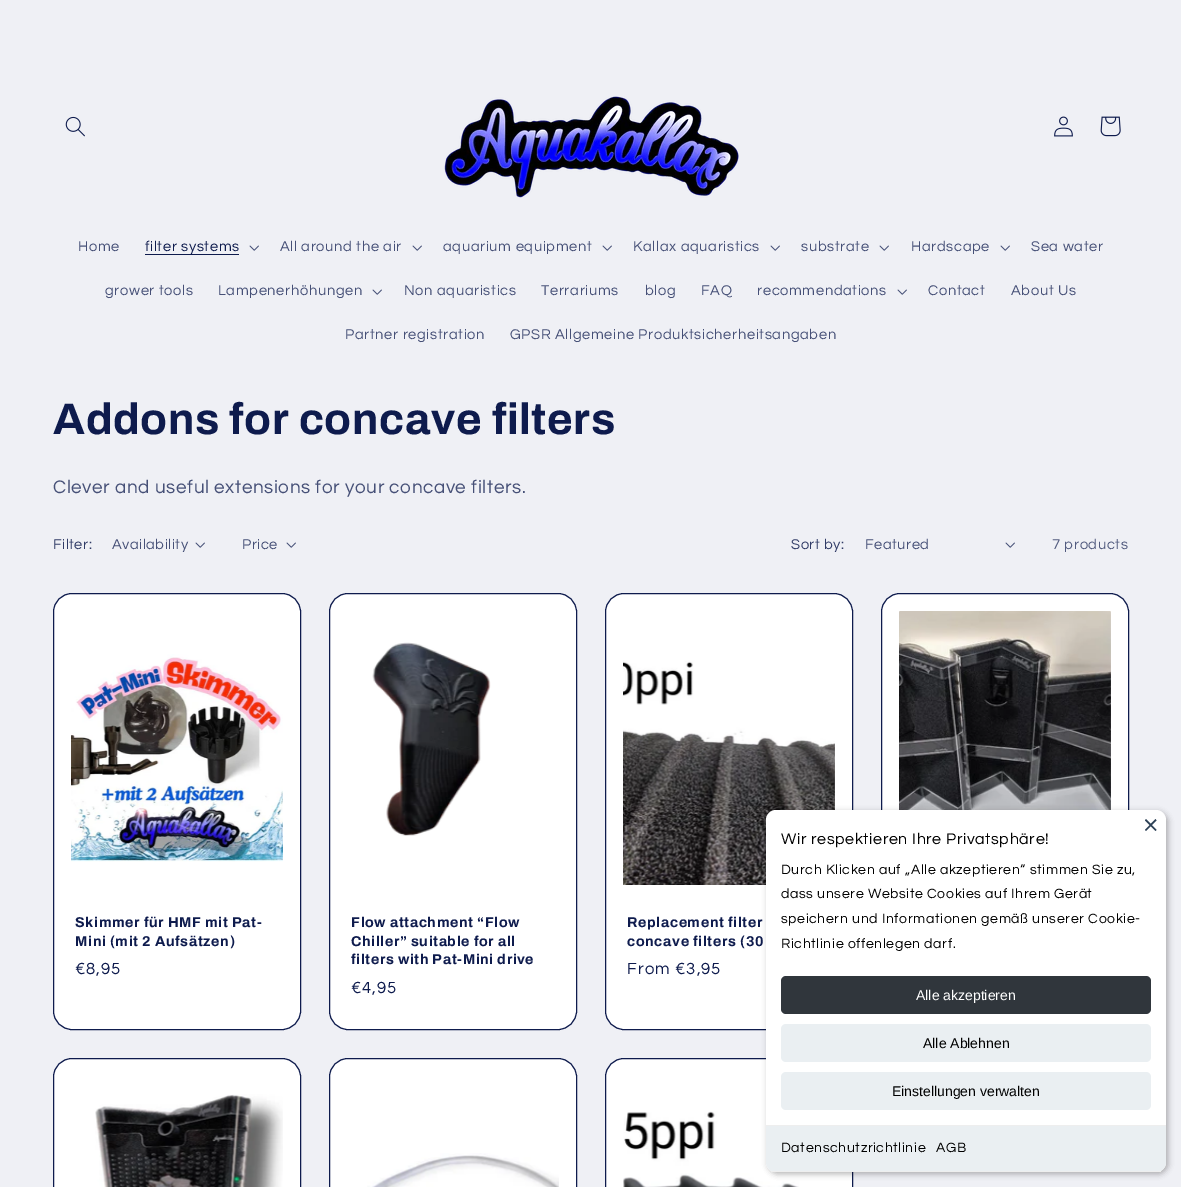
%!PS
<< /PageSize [1181 1187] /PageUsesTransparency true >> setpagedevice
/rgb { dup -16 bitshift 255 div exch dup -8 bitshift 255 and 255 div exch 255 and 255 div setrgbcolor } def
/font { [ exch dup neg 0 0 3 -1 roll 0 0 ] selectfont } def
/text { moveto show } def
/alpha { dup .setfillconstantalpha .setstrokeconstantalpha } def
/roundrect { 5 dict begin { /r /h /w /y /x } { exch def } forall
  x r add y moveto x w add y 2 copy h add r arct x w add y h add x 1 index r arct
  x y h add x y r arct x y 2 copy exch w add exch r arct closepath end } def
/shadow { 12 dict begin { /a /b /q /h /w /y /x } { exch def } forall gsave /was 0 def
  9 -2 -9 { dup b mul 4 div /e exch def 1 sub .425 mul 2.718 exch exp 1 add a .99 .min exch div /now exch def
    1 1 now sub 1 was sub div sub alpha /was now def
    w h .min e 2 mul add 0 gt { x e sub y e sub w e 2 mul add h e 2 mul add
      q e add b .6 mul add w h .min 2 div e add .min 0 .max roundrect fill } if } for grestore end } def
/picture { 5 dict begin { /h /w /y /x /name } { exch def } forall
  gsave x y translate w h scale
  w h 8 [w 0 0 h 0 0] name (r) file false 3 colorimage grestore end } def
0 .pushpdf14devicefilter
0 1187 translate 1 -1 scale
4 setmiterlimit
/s1 { /LiberationSans-Regular 14 font 16#FFFFFF rgb } def
/s2 { /LiberationSans-Regular 14 font 16#000000 rgb } def
16#EFF0F5 rgb
0 0 1181 1187 rectfill
(pic1.raw) 65 116 20 21 picture
(pic2.raw) 444 96 295 102 picture
(pic3.raw) 1054 116 19 21 picture
(pic4.raw) 1100 116 21 21 picture
/Questrial-Regular 14.7 font
16#465077 rgb
78 251 moveto 0.63 0 (Home) ashow
16#0E1B4D rgb
145 251 moveto 0.63 0 (filter systems) ashow
145 254 94 1 rectfill
(pic5.raw) 249 245 10 6 picture
16#465077 rgb
280 251 moveto 0.63 0 (All around the air) ashow
(pic5.raw) 412 245 10 6 picture
443 251 moveto 0.63 0 (aquarium equipment) ashow
(pic5.raw) 602 245 10 6 picture
633 251 moveto 0.63 0 (Kallax aquaristics) ashow
(pic5.raw) 770 245 10 6 picture
801 251 moveto 0.63 0 (substrate) ashow
(pic5.raw) 879 245 10 6 picture
911 251 moveto 0.63 0 (Hardscape) ashow
(pic5.raw) 1000 245 10 6 picture
1031 251 moveto 0.63 0 (Sea water) ashow
105 295 moveto 0.63 0 (grower tools) ashow
218 295 moveto 0.63 0 (Lampenerhöhungen) ashow
(pic5.raw) 372 289 10 6 picture
404 295 moveto 0.63 0 (Non aquaristics) ashow
541 295 moveto 0.63 0 (Terrariums) ashow
645 295 moveto 0.63 0 (blog) ashow
701 295 moveto 0.63 0 (FAQ) ashow
757 295 moveto 0.63 0 (recommendations) ashow
(pic5.raw) 897 289 10 6 picture
928 295 moveto 0.63 0 (Contact) ashow
1011 295 moveto 0.63 0 (About Us) ashow
345 339 moveto 0.63 0 (Partner registration) ashow
510 339 moveto 0.63 0 (GPSR Allgemeine Produktsicherheitsangaben) ashow
/Archivo-Bold 44 font
16#0E1B4D rgb
53 434 moveto 0.65 0 (Addons for concave filters) ashow
/Questrial-Regular 18.9 font
16#465077 rgb
53 493 moveto 0.63 0 (Clever and useful extensions for your concave filters.) ashow
/Questrial-Regular 14.7 font
16#303B66 rgb
53 549 moveto 0.5 0 (Filter:) ashow
16#465077 rgb
112 549 moveto 0.5 0 (Availability) ashow
(pic5.raw) 195 542 10 6 picture
242 549 moveto 0.5 0 (Price) ashow
(pic5.raw) 286 542 10 6 picture
16#303B66 rgb
791 549 moveto 0.5 0 (Sort by:) ashow
16#465077 rgb
865 549 moveto 0.5 0 (Featured) ashow
(pic5.raw) 1005 542 10 6 picture
16#525B7F rgb
1052 549 moveto 0.63 0 (7 products) ashow
16#FFFFFF rgb
53.5 593.5 247 436 18.5 roundrect gsave fill grestore
16#0E1B4D rgb
stroke
(pic6.raw) 71 654 212 208 picture
/Archivo-Bold 14.25 font
75 927 moveto 0.65 0 (Skimmer für HMF mit Pat-) ashow
75 946 moveto 0.65 0 (Mini \(mit 2 Aufsätzen\)) ashow
/Questrial-Regular 16.75 font
75 974 moveto 1 0 (€8,95) ashow
16#FFFFFF rgb
329.5 593.5 247 436 18.5 roundrect gsave fill grestore
16#0E1B4D rgb
stroke
(pic7.raw) 372 642 119 194 picture
/Archivo-Bold 14.25 font
351 927 moveto 0.65 0 (Flow attachment “Flow) ashow
351 946 moveto 0.65 0 (Chiller” suitable for all) ashow
351 964 moveto 0.65 0 (filters with Pat-Mini drive) ashow
/Questrial-Regular 16.75 font
351 993 moveto 1 0 (€4,95) ashow
16#FFFFFF rgb
605.5 593.5 247 436 18.5 roundrect gsave fill grestore
16#0E1B4D rgb
stroke
(pic8.raw) 623 660 212 225 picture
/Archivo-Bold 14.25 font
627 927 moveto 0.65 0 (Replacement filter) ashow
627 946 moveto 0.65 0 (concave filters \(30) ashow
/Questrial-Regular 16.75 font
627 974 moveto 1 0 (From €3,95) ashow
16#FFFFFF rgb
881.5 593.5 247 436 18.5 roundrect gsave fill grestore
16#0E1B4D rgb
stroke
(pic9.raw) 899 611 212 199 picture
16#FFFFFF rgb
53.5 1058.5 247 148 18.5 roundrect gsave fill grestore
16#0E1B4D rgb
stroke
(pic10.raw) 95 1094 188 93 picture
16#FFFFFF rgb
329.5 1058.5 247 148 18.5 roundrect gsave fill grestore
16#0E1B4D rgb
stroke
(pic11.raw) 367 1153 192 34 picture
16#FFFFFF rgb
605.5 1058.5 247 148 18.5 roundrect gsave fill grestore
16#0E1B4D rgb
stroke
(pic12.raw) 623 1111 176 76 picture
16#000000 rgb
768 812 400 362 10 3 0.15 shadow
768 812 400 362 10 3 0.15 shadow
16#FFFFFF rgb
766 810 400 362 10 roundrect fill
16#2D4156 rgb
1155.5 819 moveto 1156.5 820.5 lineto 1146 831 lineto 1145 830 lineto closepath fill
1145 820.5 moveto 1146 819 lineto 1156.5 830 lineto 1155.5 831 lineto closepath fill
/Questrial-Regular 16 font
16#000000 rgb
781 844 moveto 0.63 0 (Wir respektieren Ihre Privatsphäre!) ashow
/Questrial-Regular 14 font
781 874 moveto 0.63 0 (Durch Klicken auf „Alle akzeptieren“ stimmen Sie zu,) ashow
781 898 moveto 0.63 0 (dass unsere Website Cookies auf Ihrem Gerät) ashow
781 923 moveto 0.63 0 (speichern und Informationen gemäß unserer Cookie-) ashow
781 948 moveto 0.63 0 (Richtlinie offenlegen darf.) ashow
16#30363C rgb
781 976 370 38 5 roundrect fill
s1
(Alle akzeptieren) 916 1000 text
16#EAEFF2 rgb
781 1024 370 38 5 roundrect fill
s2
(Alle Ablehnen) 923 1048 text
16#EAEFF2 rgb
781 1072 370 38 5 roundrect fill
s2
(Einstellungen verwalten) 892 1096 text
16#EAEFF2 rgb
766 1125 moveto 1166 1125 lineto 1166 1162 lineto 1166 1167.5 1161.5 1172 1156 1172 curveto 776 1172 lineto 770.5 1172 766 1167.5 766 1162 curveto closepath fill
16#EEEEEE rgb
766 1125 400 1 rectfill
gsave
766 810 400 362 10 roundrect clip newpath
766 1171 400 1 rectfill
grestore
/Questrial-Regular 14 font
16#000000 rgb
781 1152 moveto 0.63 0 (Datenschutzrichtlinie) ashow
936 1152 moveto 0.63 0 (AGB) ashow
.poppdf14devicefilter showpage
